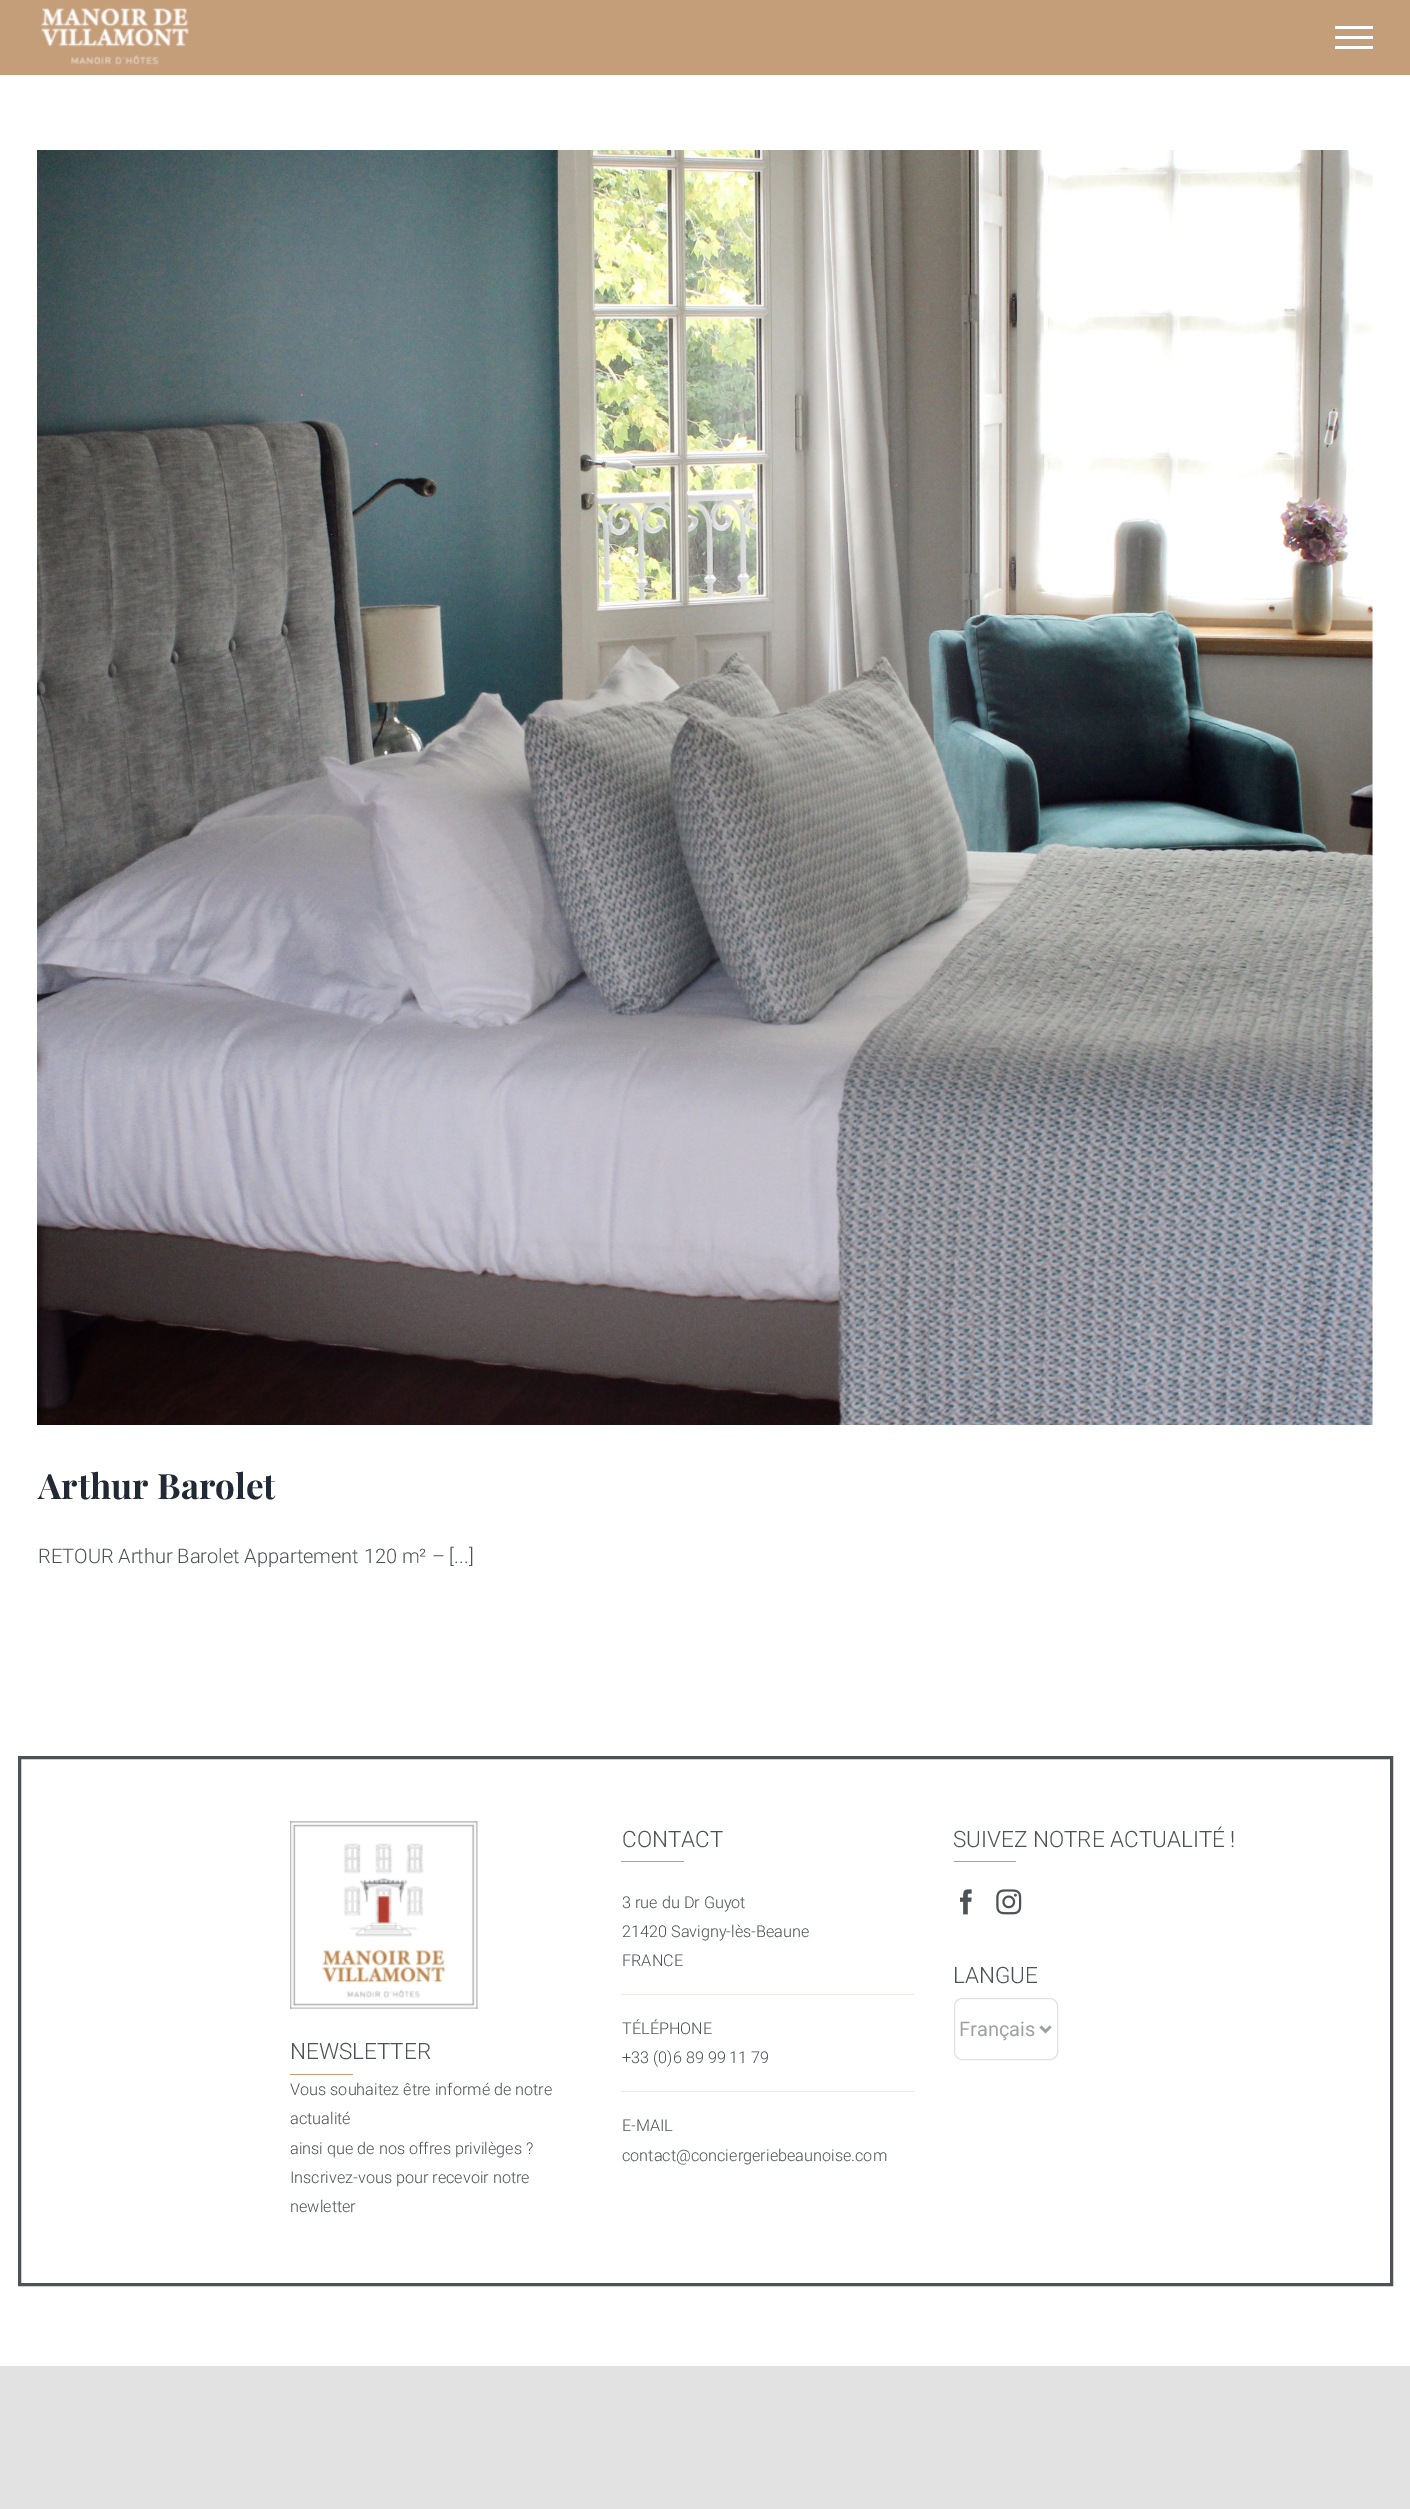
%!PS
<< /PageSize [1410 2509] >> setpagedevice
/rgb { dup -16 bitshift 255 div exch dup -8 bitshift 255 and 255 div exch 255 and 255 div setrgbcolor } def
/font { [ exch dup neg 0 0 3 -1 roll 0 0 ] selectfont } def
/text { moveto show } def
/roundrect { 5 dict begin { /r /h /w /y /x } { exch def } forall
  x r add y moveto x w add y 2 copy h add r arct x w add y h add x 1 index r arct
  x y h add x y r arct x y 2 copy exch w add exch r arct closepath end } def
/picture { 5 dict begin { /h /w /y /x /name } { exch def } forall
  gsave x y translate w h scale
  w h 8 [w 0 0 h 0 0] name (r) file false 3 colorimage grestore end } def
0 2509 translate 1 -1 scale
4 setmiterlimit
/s1 { /PlayfairDisplay-Bold 35 font 16#212934 rgb } def
/s2 { /Roboto-Light 20 font 16#4D5256 rgb } def
/s3 { /Roboto-Light 22.5 font 16#4D5256 rgb } def
/s4 { /Roboto-Light 16.25 font 16#4D5256 rgb } def
/s5 { /Roboto-Regular 20 font 16#9EA0A4 rgb } def
16#E2E2E2 rgb
0 0 1410 2509 rectfill
16#FFFFFF rgb
0 75 1410 2291 rectfill
16#C49D79 rgb
0 0 1410 75 rectfill
(pic1.raw) 41 7 148 58 picture
16#FFFFFF rgb
1335 26 38 3 rectfill
1335 36 38 3 rectfill
1335 46 38 3 rectfill
(pic2.raw) 37 150 1336 1275 picture
s1
(Arthur Barolet) 38 1499 text
s2
(RETOUR Arthur Barolet Appartement 120 m² – [...]) 38 1563 text
3 setlinewidth
19.5 1757.5 1372 527 rectstroke
(pic3.raw) 290 1821 188 188 picture
s3
(NEWSLETTER) 290 2059 text
16#C49D79 rgb
290 2074 63 1 rectfill
s4
(Vous souhaitez être informé de notre) 290 2095 text
(actualité) 290 2124 text
(ainsi que de nos offres privilèges ?) 290 2154 text
(Inscrivez-vous pour recevoir notre) 290 2183 text
(newletter) 290 2212 text
s3
(CONTACT) 622 1847 text
16#C49D79 rgb
621 1861 63 1 rectfill
s4
(3 rue du Dr Guyot) 622 1908 text
(21420 Savigny-lès-Beaune) 622 1937 text
(FRANCE) 622 1966 text
16#EEE9E1 rgb
621 1994 293 1 rectfill
s4
(TÉLÉPHONE) 622 2034 text
(+33 \(0\)6 89 99 11 79) 622 2063 text
16#EEE9E1 rgb
621 2091 293 1 rectfill
s4
(E-MAIL) 622 2131 text
(contact@conciergeriebeaunoise.com) 622 2161 text
s3
(SUIVEZ NOTRE ACTUALITÉ !) 953 1847 text
16#C49D79 rgb
954 1861 62 1 rectfill
(pic4.raw) 960 1889 12 26 picture
(pic5.raw) 996 1889 26 26 picture
s3
(LANGUE) 953 1983 text
16#E2E2E2 rgb
1 setlinewidth
954.5 1998.5 103 61 7.5 roundrect stroke
16#9EA0A4 rgb
2.5 setlinewidth
1040.5 2026.5 moveto 1045.5 2031.5 lineto 1050.5 2026.5 lineto stroke
s5
(Français) 959 2036 text
showpage
